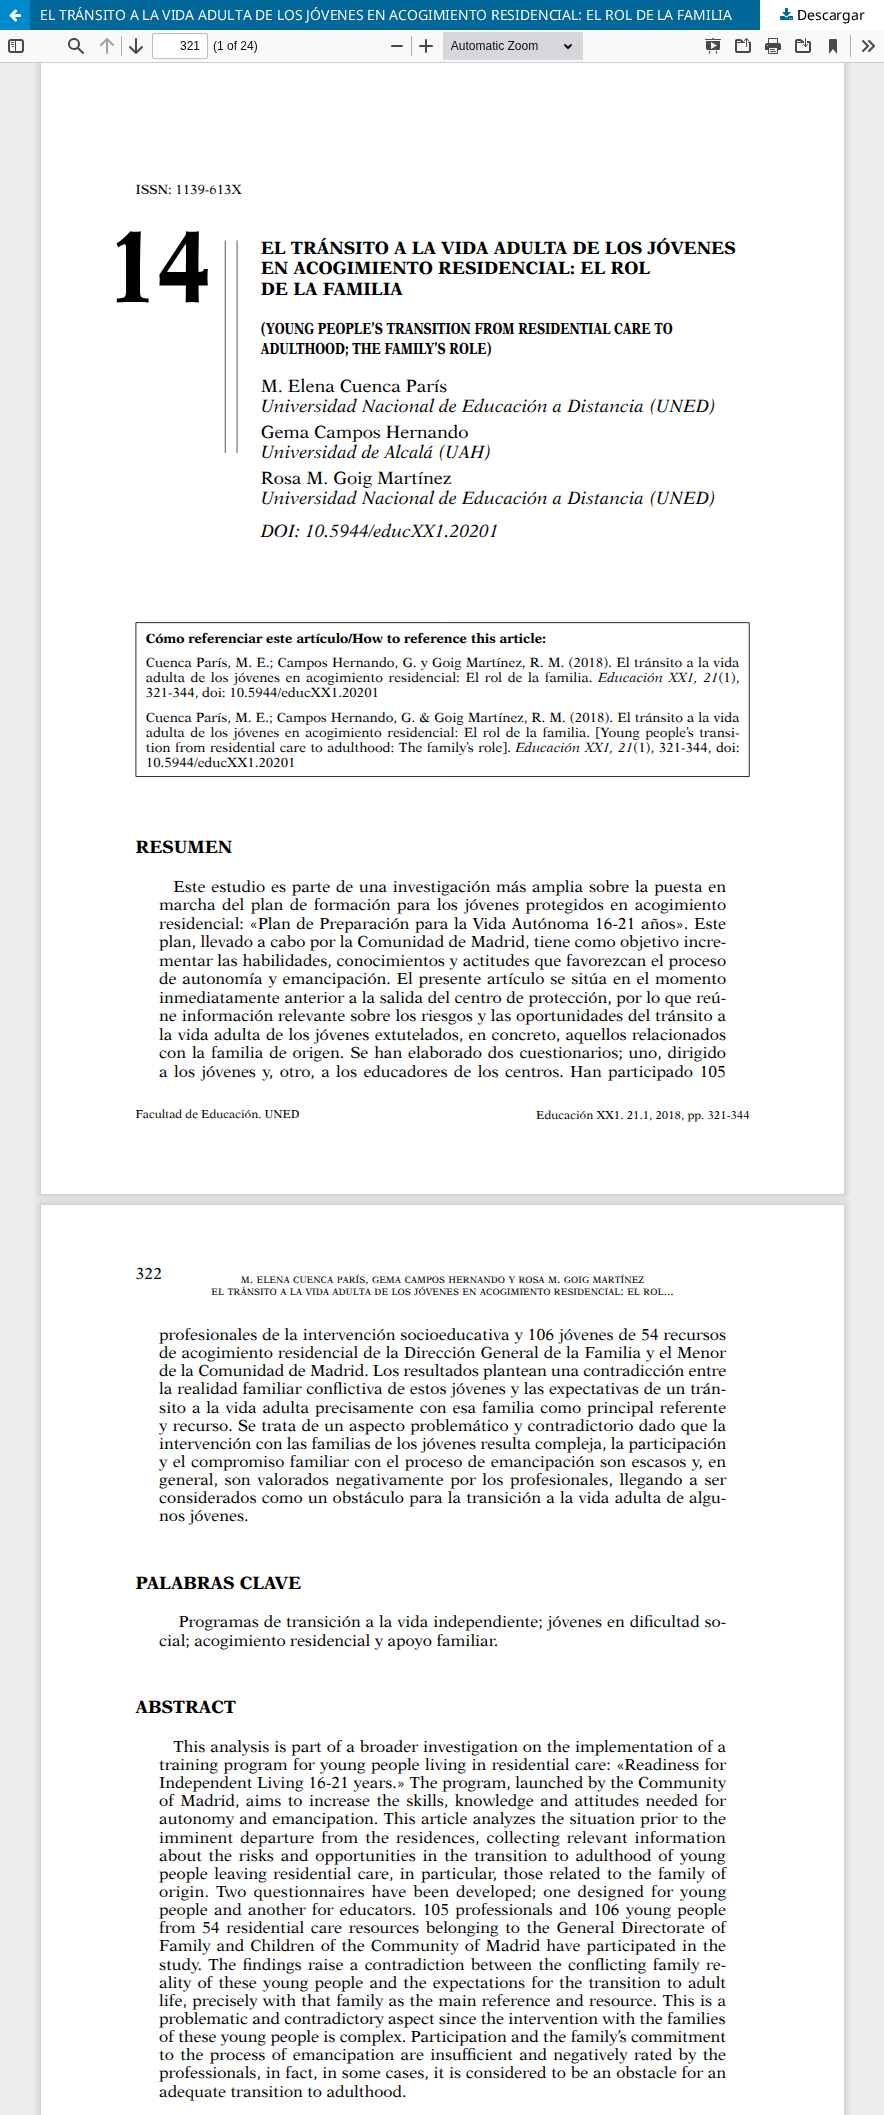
%!PS
<< /PageSize [884 2115] >> setpagedevice
/rgb { dup -16 bitshift 255 div exch dup -8 bitshift 255 and 255 div exch 255 and 255 div setrgbcolor } def
/font { [ exch dup neg 0 0 3 -1 roll 0 0 ] selectfont } def
/text { moveto show } def
/picture { 5 dict begin { /h /w /y /x /name } { exch def } forall
  gsave x y translate w h scale
  w h 8 [w 0 0 h 0 0] name (r) file false 3 colorimage grestore end } def
0 2115 translate 1 -1 scale
4 setmiterlimit
/s1 { /NotoSans-Regular 14 font 16#FFFFFF rgb } def
/s2 { /NotoSans-Regular 14 font 16#000000 rgb } def
16#FFFFFF rgb
0 0 884 2115 rectfill
16#006798 rgb
30 0 730 30 rectfill
16#008ACB rgb
0 0 30 30 rectfill
(pic1.raw) 9 9 12 13 picture
s1
(EL TRÁNSITO A LA VIDA ADULTA DE LOS JÓVENES EN ACOGIMIENTO RESIDENCIAL: EL ROL DE LA FAMILIA) 40 20 text
(pic2.raw) 780 8 13 12 picture
s2
(Descargar) 797 20 text
(pic3.raw) 0 30 884 2085 picture
showpage
